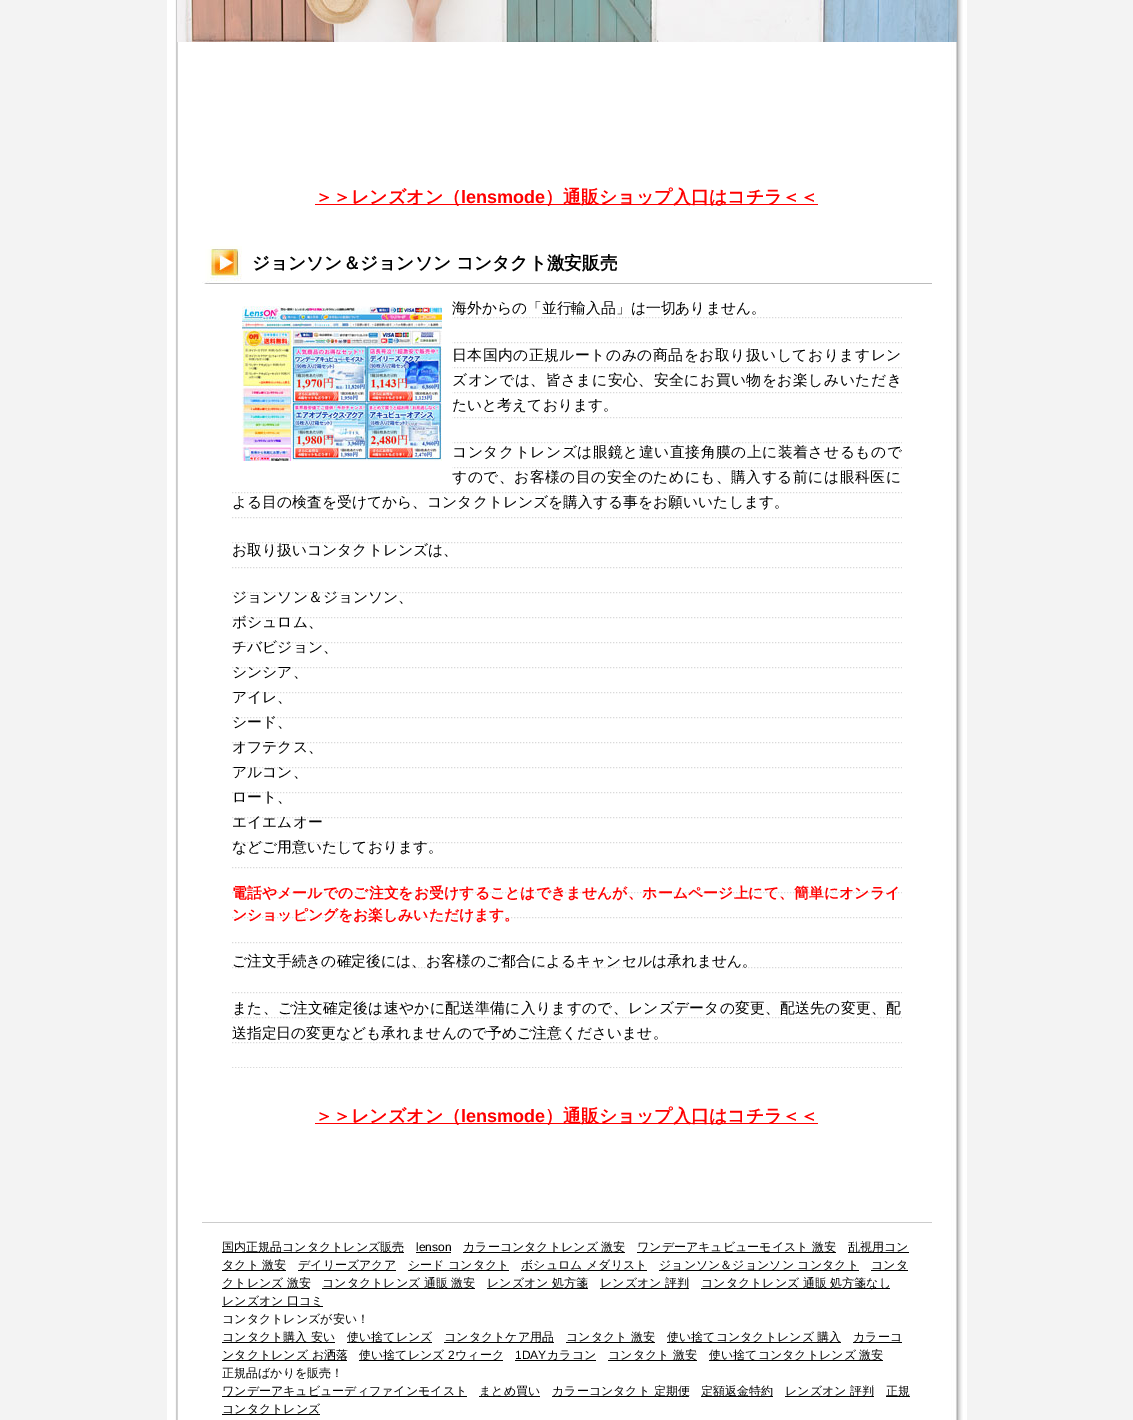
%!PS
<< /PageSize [1133 1420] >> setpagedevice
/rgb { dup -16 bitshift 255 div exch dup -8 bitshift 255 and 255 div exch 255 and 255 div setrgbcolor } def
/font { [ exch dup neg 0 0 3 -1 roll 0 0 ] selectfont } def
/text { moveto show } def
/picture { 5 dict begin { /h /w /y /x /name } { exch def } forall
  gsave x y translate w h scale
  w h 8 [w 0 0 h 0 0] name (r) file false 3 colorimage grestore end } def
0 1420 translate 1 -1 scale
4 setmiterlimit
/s1 { /WenQuanYiZenHei-Bold 18 font 16#FF0000 rgb } def
/s2 { /LiberationSans-Bold 18 font 16#FF0000 rgb } def
/s3 { /WenQuanYiZenHei-Bold 17.7 font 16#000000 rgb } def
/s4 { /WenQuanYiZenHei-Medium 14.8 font 16#000000 rgb } def
/s5 { /WenQuanYiZenHei-Bold 14.8 font 16#FF0000 rgb } def
/s6 { /WenQuanYiZenHei-Medium 12 font 16#000000 rgb } def
/s7 { /LiberationSans-Regular 12 font 16#000000 rgb } def
16#F3F3F3 rgb
0 0 1133 1420 rectfill
(pic1.raw) 167 0 800 1420 picture
(pic2.raw) 177 0 780 42 picture
16#FF0000 rgb
315 204 503 1 rectfill
s1
(＞＞レンズオン（) 315 203 text
s2
(lensmode) 461 203 text
s1
(）通販ショップ入口はコチラ＜＜) 545 203 text
(pic3.raw) 202 246 730 38 picture
s3
(ジョンソン＆ジョンソン コンタクト激安販売) 252 269 text
(pic4.raw) 232 317 670 751 picture
16#FFFFFF rgb
232 317 220 152 rectfill
(pic5.raw) 242 306 200 155 picture
s4
(海外からの「並行輸入品」は一切ありません。) 452 313 text
452 360 moveto 0.5 0 (日本国内の正規ルートのみの商品をお取り扱いしておりますレン) ashow
452 385 moveto 0.5 0 (ズオンでは、皆さまに安心、安全にお買い物をお楽しみいただき) ashow
(たいと考えております。) 452 410 text
452 457 moveto 0.5 0 (コンタクトレンズは眼鏡と違い直接角膜の上に装着させるもので) ashow
452 482 moveto 0.5 0 (すので、お客様の目の安全のためにも、購入する前には眼科医に) ashow
(よる目の検査を受けてから、コンタクトレンズを購入する事をお願いいたします。) 232 507 text
(お取り扱いコンタクトレンズは、) 232 555 text
(ジョンソン＆ジョンソン、) 232 602 text
(ボシュロム、) 232 627 text
(チバビジョン、) 232 652 text
(シンシア、) 232 677 text
(アイレ、) 232 702 text
(シード、) 232 727 text
(オフテクス、) 232 752 text
(アルコン、) 232 777 text
(ロート、) 232 802 text
(エイエムオー) 232 827 text
(などご用意いたしております。) 232 852 text
/WenQuanYiZenHei-Bold 14.8 font
16#FF0000 rgb
232 898 moveto 0.15 0 (電話やメールでのご注文をお受けすることはできませんが、ホームページ上にて、簡単にオンライ) ashow
(ンショッピングをお楽しみいただけます。) 232 920 text
s4
(ご注文手続きの確定後には、お客様のご都合によるキャンセルは承れません。) 232 966 text
232 1013 moveto 0.25 0 (また、ご注文確定後は速やかに配送準備に入りますので、レンズデータの変更、配送先の変更、配) ashow
(送指定日の変更なども承れませんので予めご注意くださいませ。) 232 1038 text
16#FF0000 rgb
315 1123 503 1 rectfill
s1
(＞＞レンズオン（) 315 1122 text
s2
(lensmode) 461 1122 text
s1
(）通販ショップ入口はコチラ＜＜) 545 1122 text
16#CCCCCC rgb
202 1222 730 1 rectfill
16#000000 rgb
222 1252 182 1 rectfill
s6
(国内正規品コンタクトレンズ販売) 222 1251 text
s7
(lenson) 416 1251 text
416 1252 35 1 rectfill
463 1252 162 1 rectfill
s6
(カラーコンタクトレンズ 激安) 463 1251 text
637 1252 199 1 rectfill
(ワンデーアキュビューモイスト 激安) 637 1251 text
848 1252 61 1 rectfill
(乱視用コン) 848 1251 text
222 1270 64 1 rectfill
(タクト 激安) 222 1269 text
298 1270 98 1 rectfill
(デイリーズアクア) 298 1269 text
408 1270 101 1 rectfill
(シード コンタクト) 408 1269 text
521 1270 126 1 rectfill
(ボシュロム メダリスト) 521 1269 text
659 1270 200 1 rectfill
(ジョンソン＆ジョンソン コンタクト) 659 1269 text
871 1270 37 1 rectfill
(コンタ) 871 1269 text
222 1288 88 1 rectfill
(クトレンズ 激安) 222 1287 text
322 1288 153 1 rectfill
(コンタクトレンズ 通販 激安) 322 1287 text
487 1288 101 1 rectfill
(レンズオン 処方箋) 487 1287 text
600 1288 89 1 rectfill
(レンズオン 評判) 600 1287 text
701 1288 189 1 rectfill
(コンタクトレンズ 通販 処方箋なし) 701 1287 text
222 1306 101 1 rectfill
(レンズオン 口コミ) 222 1305 text
(コンタクトレンズが安い！) 222 1323 text
222 1342 113 1 rectfill
(コンタクト購入 安い) 222 1341 text
347 1342 85 1 rectfill
(使い捨てレンズ) 347 1341 text
444 1342 110 1 rectfill
(コンタクトケア用品) 444 1341 text
566 1342 89 1 rectfill
(コンタクト 激安) 566 1341 text
667 1342 174 1 rectfill
(使い捨てコンタクトレンズ 購入) 667 1341 text
853 1342 49 1 rectfill
(カラーコ) 853 1341 text
222 1360 125 1 rectfill
(ンタクトレンズ お洒落) 222 1359 text
359 1360 144 1 rectfill
(使い捨てレンズ) 359 1359 text
s7
(2) 448 1359 text
s6
(ウィーク) 455 1359 text
s7
(1DAY) 515 1359 text
515 1360 81 1 rectfill
s6
(カラコン) 547 1359 text
608 1360 89 1 rectfill
(コンタクト 激安) 608 1359 text
709 1360 174 1 rectfill
(使い捨てコンタクトレンズ 激安) 709 1359 text
(正規品ばかりを販売！) 222 1377 text
222 1396 245 1 rectfill
(ワンデーアキュビューディファインモイスト) 222 1395 text
479 1396 61 1 rectfill
(まとめ買い) 479 1395 text
552 1396 137 1 rectfill
(カラーコンタクト 定期便) 552 1395 text
701 1396 72 1 rectfill
(定額返金特約) 701 1395 text
785 1396 89 1 rectfill
(レンズオン 評判) 785 1395 text
886 1396 24 1 rectfill
(正規) 886 1395 text
222 1414 98 1 rectfill
(コンタクトレンズ) 222 1413 text
showpage
